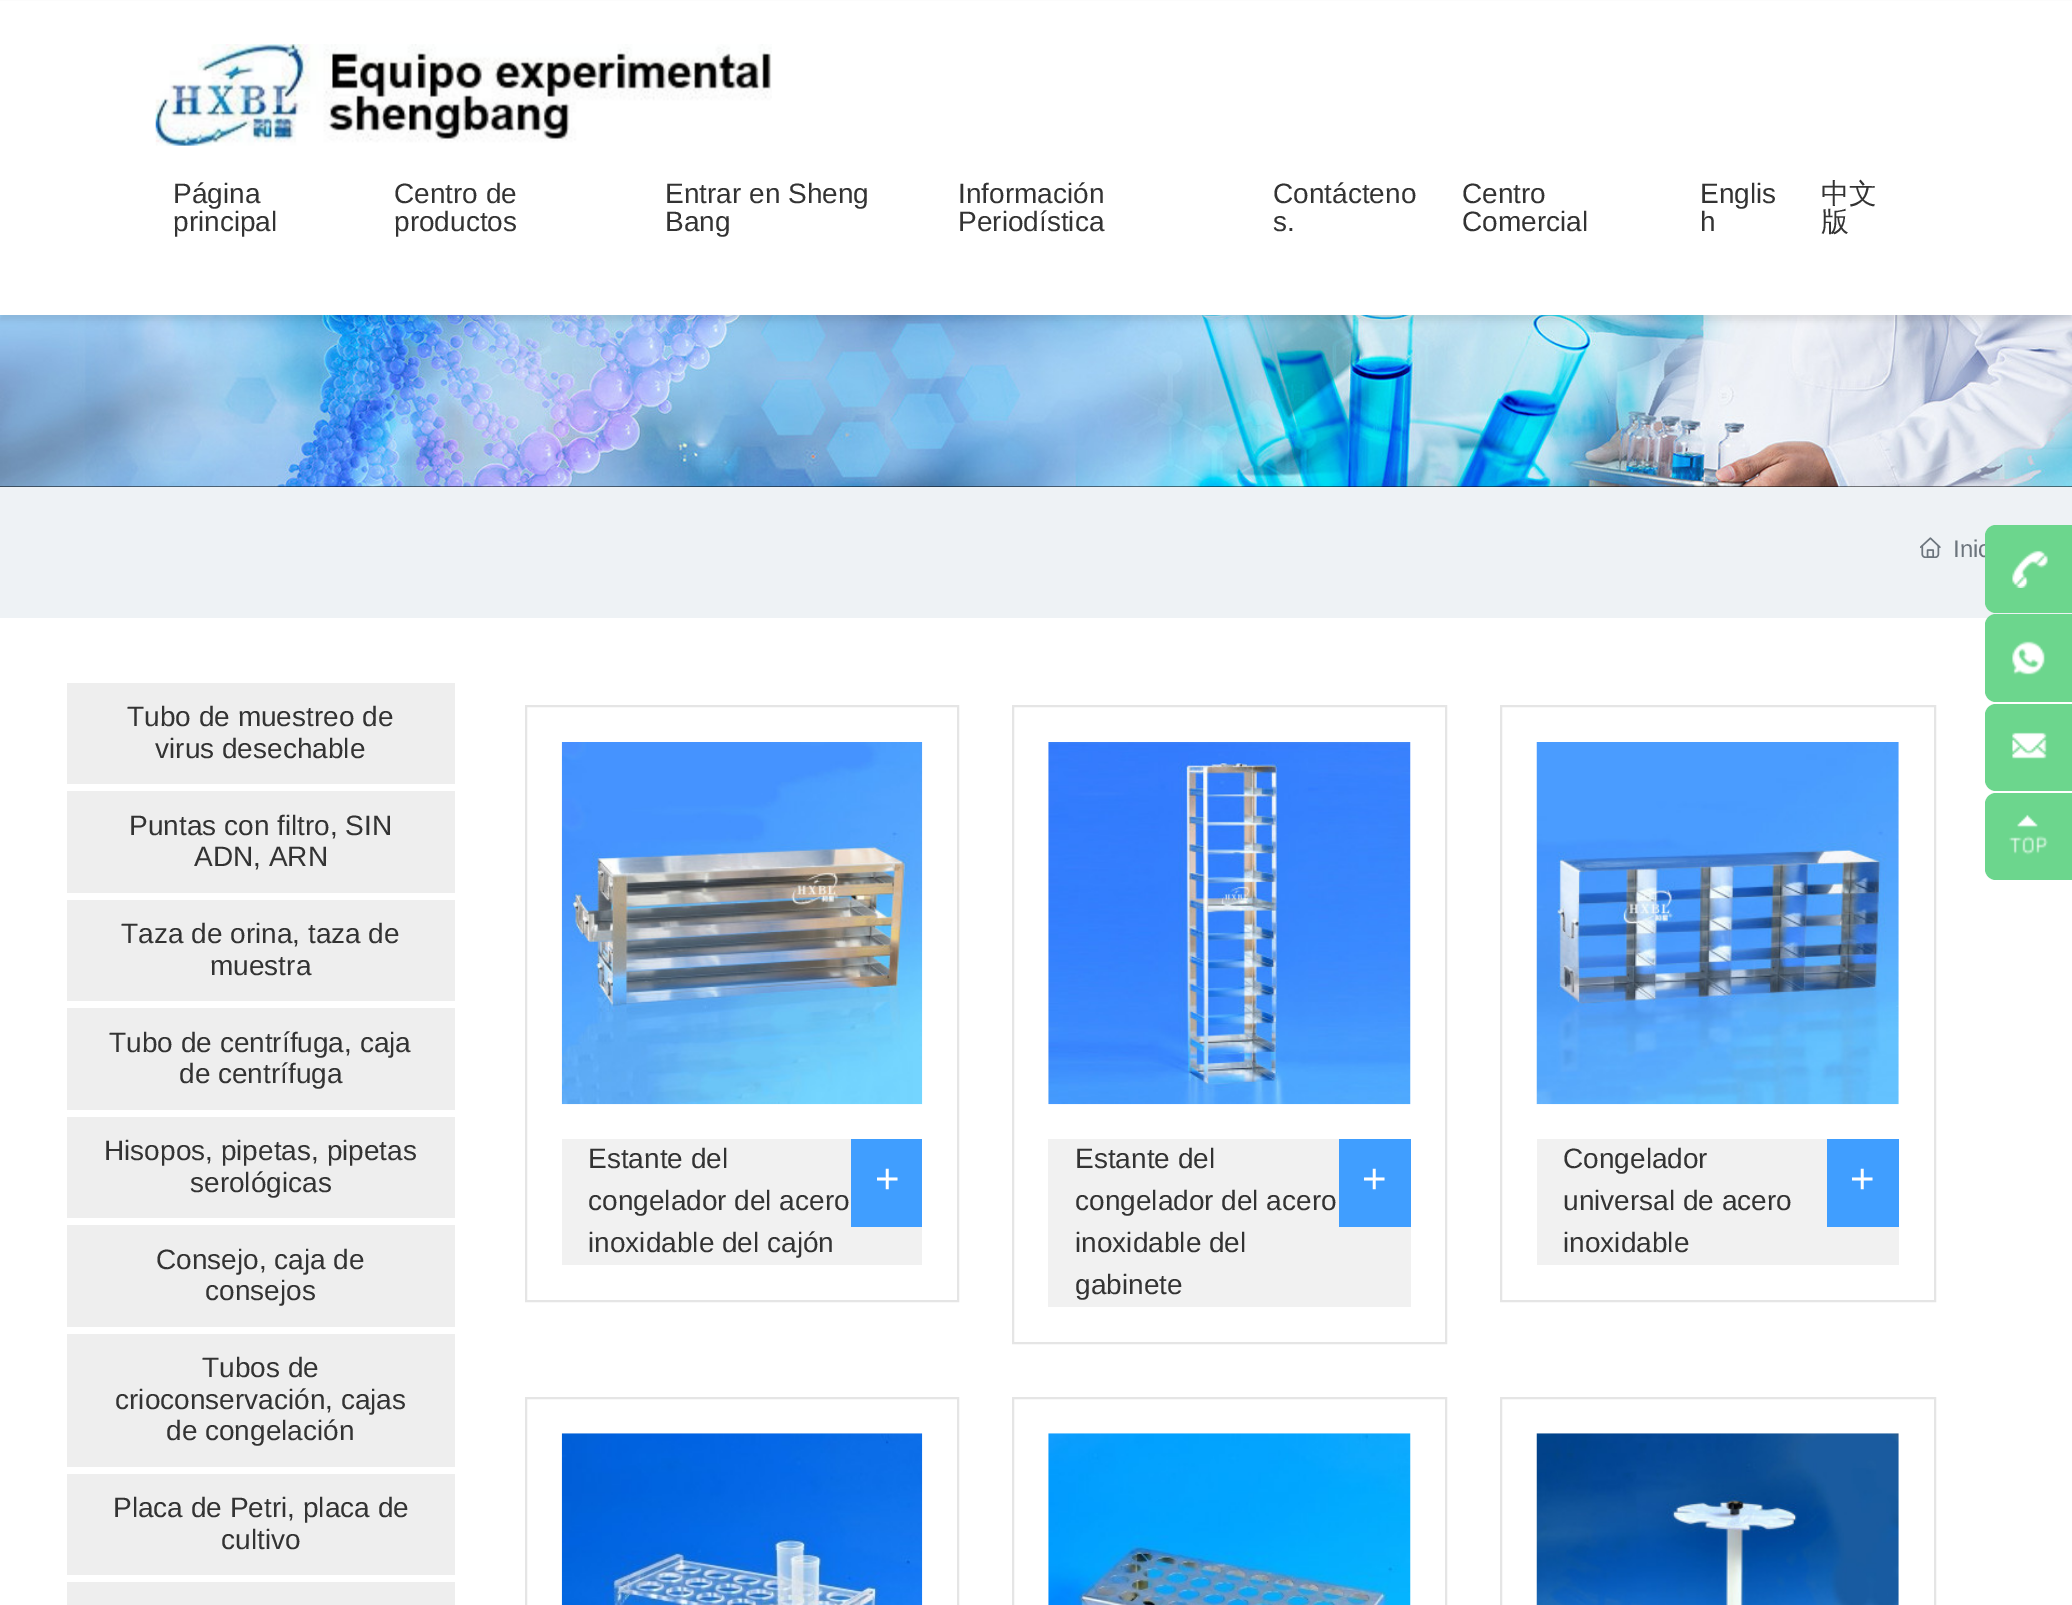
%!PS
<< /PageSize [2072 1605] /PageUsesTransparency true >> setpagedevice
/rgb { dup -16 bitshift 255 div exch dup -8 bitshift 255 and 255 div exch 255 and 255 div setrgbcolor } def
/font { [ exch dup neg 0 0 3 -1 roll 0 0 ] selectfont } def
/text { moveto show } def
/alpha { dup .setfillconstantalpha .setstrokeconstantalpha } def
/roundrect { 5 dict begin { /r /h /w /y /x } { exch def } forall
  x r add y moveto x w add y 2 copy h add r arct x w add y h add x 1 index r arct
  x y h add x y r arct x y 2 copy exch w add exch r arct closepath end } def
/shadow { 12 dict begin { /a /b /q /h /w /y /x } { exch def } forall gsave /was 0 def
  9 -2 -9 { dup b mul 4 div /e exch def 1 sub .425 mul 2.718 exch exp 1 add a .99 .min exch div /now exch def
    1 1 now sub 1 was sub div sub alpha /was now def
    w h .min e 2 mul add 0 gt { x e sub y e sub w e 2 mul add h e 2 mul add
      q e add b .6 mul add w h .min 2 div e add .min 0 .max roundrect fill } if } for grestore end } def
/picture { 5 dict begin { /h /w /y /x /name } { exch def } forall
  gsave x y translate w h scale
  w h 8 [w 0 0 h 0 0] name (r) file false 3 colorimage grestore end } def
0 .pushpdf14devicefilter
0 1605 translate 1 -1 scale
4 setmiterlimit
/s1 { /LiberationSans-Regular 28 font 16#333333 rgb } def
/s2 { /WenQuanYiZenHei-Medium 28 font 16#333333 rgb } def
/s3 { /LiberationSans-Regular 24 font 16#6C757D rgb } def
/s4 { /LiberationSans-Regular 42 font 16#FFFFFF rgb } def
16#FFFFFF rgb
0 0 2072 1605 rectfill
16#000000 rgb
0 486 2072 1 rectfill
(pic6.raw) 0 315 2072 172 picture
0 5 2072 315 0 3.5 0.1 shadow
16#FFFFFF rgb
0 1 2072 314 rectfill
(pic1.raw) 155 44 617 102 picture
s1
(Página) 173 203 text
(principal) 173 231 text
(Centro de) 394 203 text
(productos) 394 231 text
(Entrar en Sheng) 665 203 text
(Bang) 665 231 text
(Información) 958 203 text
(Periodística) 958 231 text
(Contácteno) 1273 203 text
(s.) 1273 231 text
(Centro) 1462 203 text
(Comercial) 1462 231 text
(Englis) 1700 203 text
(h) 1700 231 text
s2
(中文) 1821 203 text
(版) 1821 231 text
16#EEF2F5 rgb
0 487 2072 131 rectfill
s3
(Inic) 1953 557 text
16#6CD68D rgb
1985 525 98 88 11 roundrect fill
(pic2.raw) 2012 550 36 38 picture
1985 614 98 88 11 roundrect fill
(pic3.raw) 2012 641 33 34 picture
1985 704 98 87 11 roundrect fill
(pic4.raw) 2012 732 35 27 picture
1985 793 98 87 11 roundrect fill
(pic5.raw) 2009 814 39 41 picture
(pic7.raw) 1920 537 21 21 picture
16#EEEEEE rgb
67 683 388 101 rectfill
s1
(Tubo de muestreo de) 127 726 text
(virus desechable) 155 758 text
16#EEEEEE rgb
67 791 388 102 rectfill
s1
(Puntas con filtro, SIN) 129 835 text
(ADN, ARN) 194 866 text
16#EEEEEE rgb
67 900 388 101 rectfill
s1
(Taza de orina, taza de) 121 943 text
(muestra) 210 975 text
16#EEEEEE rgb
67 1008 388 102 rectfill
s1
(Tubo de centrífuga, caja) 109 1052 text
(de centrífuga) 179 1083 text
16#EEEEEE rgb
67 1117 388 101 rectfill
s1
(Hisopos, pipetas, pipetas) 104 1160 text
(serológicas) 190 1192 text
16#EEEEEE rgb
67 1225 388 102 rectfill
s1
(Consejo, caja de) 156 1269 text
(consejos) 205 1300 text
16#EEEEEE rgb
67 1334 388 133 rectfill
s1
(Tubos de) 202 1377 text
(crioconservación, cajas) 115 1409 text
(de congelación) 166 1440 text
16#EEEEEE rgb
67 1474 388 101 rectfill
s1
(Placa de Petri, placa de) 113 1517 text
(cultivo) 221 1549 text
16#EEEEEE rgb
67 1582 388 23 rectfill
16#E5E5E5 rgb
2 setlinewidth
526 706 432 595 rectstroke
(pic8.raw) 561 742 362 363 picture
16#F1F1F1 rgb
562 1139 360 126 rectfill
s1
(Estante del) 588 1168 text
(congelador del acero) 588 1210 text
(inoxidable del cajón) 588 1252 text
16#409EFF rgb
851 1139 71 88 rectfill
s4
(+) 875 1193 text
16#E5E5E5 rgb
1013 706 433 637 rectstroke
(pic9.raw) 1048 742 363 363 picture
16#F1F1F1 rgb
1048 1139 363 168 rectfill
s1
(Estante del) 1075 1168 text
(congelador del acero) 1075 1210 text
(inoxidable del) 1075 1252 text
(gabinete) 1075 1294 text
16#409EFF rgb
1339 1139 72 88 rectfill
s4
(+) 1362 1193 text
16#E5E5E5 rgb
1501 706 434 595 rectstroke
(pic10.raw) 1536 742 363 363 picture
16#F1F1F1 rgb
1537 1139 362 126 rectfill
s1
(Congelador) 1563 1168 text
(universal de acero) 1563 1210 text
(inoxidable) 1563 1252 text
16#409EFF rgb
1827 1139 72 88 rectfill
s4
(+) 1850 1193 text
16#E5E5E5 rgb
526 1398 432 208 rectstroke
(pic11.raw) 561 1433 362 172 picture
1013 1398 433 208 rectstroke
(pic12.raw) 1048 1433 363 172 picture
1501 1398 434 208 rectstroke
(pic13.raw) 1536 1433 363 172 picture
.poppdf14devicefilter showpage
